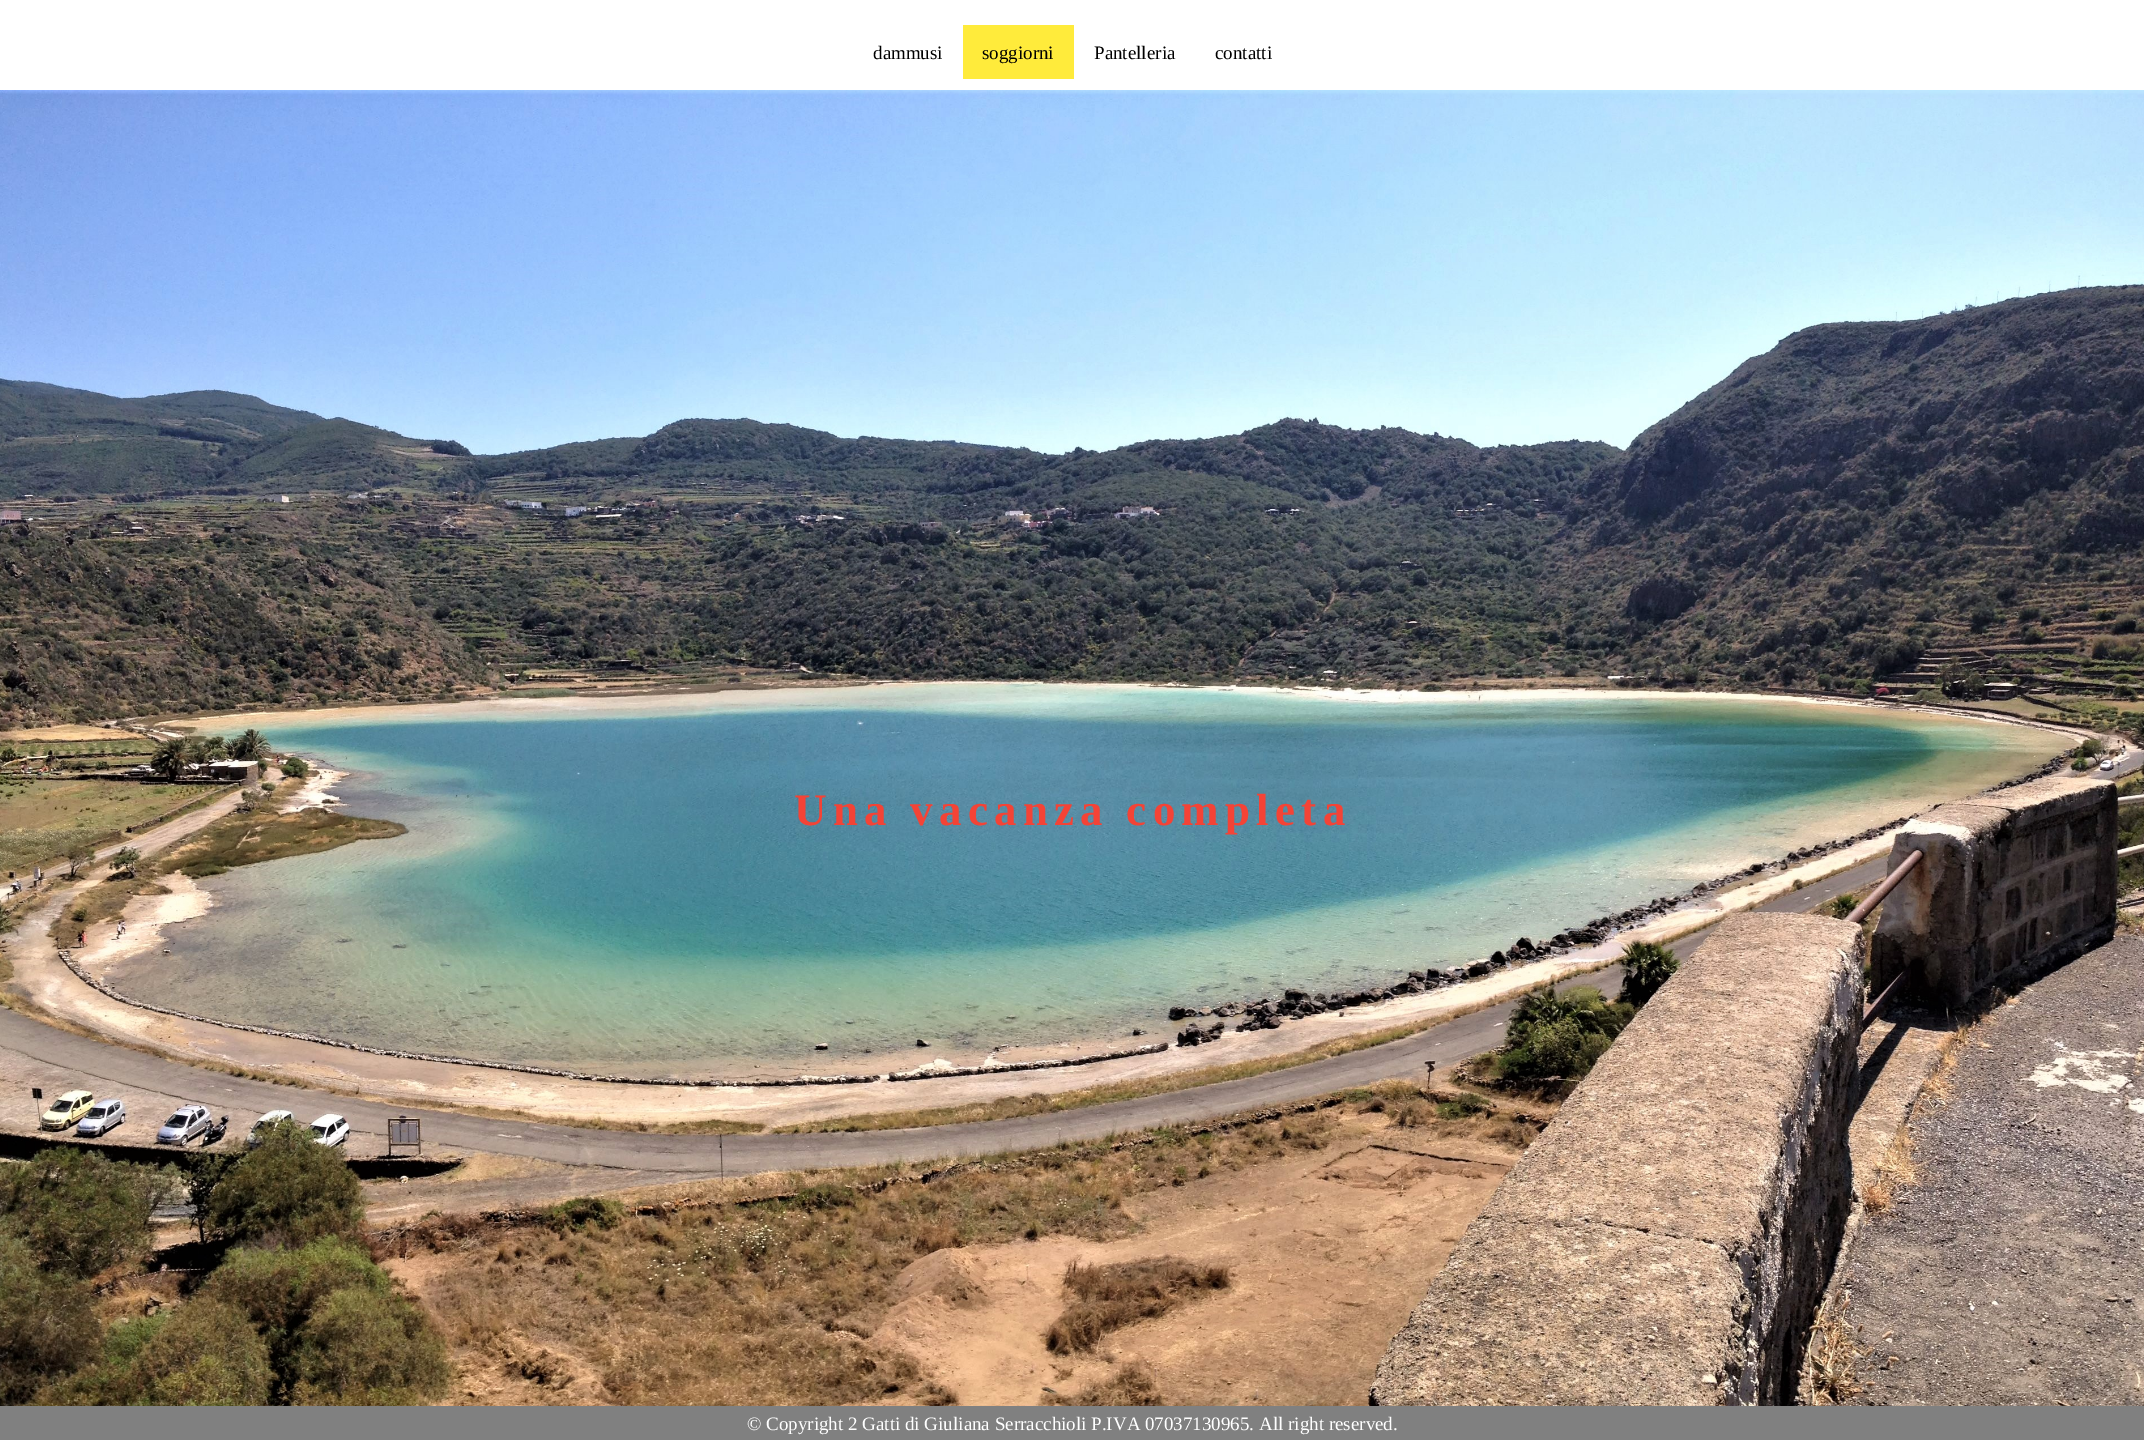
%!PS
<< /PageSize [2144 1440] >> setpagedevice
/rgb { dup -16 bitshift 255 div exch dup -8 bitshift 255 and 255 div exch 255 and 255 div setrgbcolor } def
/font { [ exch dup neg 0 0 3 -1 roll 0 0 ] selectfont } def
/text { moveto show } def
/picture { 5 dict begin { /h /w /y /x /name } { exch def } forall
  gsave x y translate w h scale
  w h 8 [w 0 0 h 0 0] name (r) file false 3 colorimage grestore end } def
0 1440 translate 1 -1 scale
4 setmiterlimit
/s1 { /LiberationSerif-Regular 19 font 16#000000 rgb } def
/s2 { /LiberationSerif-Regular 19 font 16#FFFFFF rgb } def
16#FFFFFF rgb
0 0 2144 1440 rectfill
s1
(dammusi) 873 59 text
16#FFEB3B rgb
963 25 111 54 rectfill
s1
(soggiorni) 982 59 text
(Pantelleria) 1094 59 text
(contatti) 1215 59 text
(pic1.raw) 0 90 2144 1316 picture
/LiberationSerif-Bold 45 font
16#F44336 rgb
794 825 moveto 6.25 0 (Una vacanza completa) ashow
16#808080 rgb
0 1406 2144 34 rectfill
s2
(© Copyright 2 Gatti di Giuliana Serracchioli P.IVA 07037130965. All right reserved.) 747 1430 text
showpage
